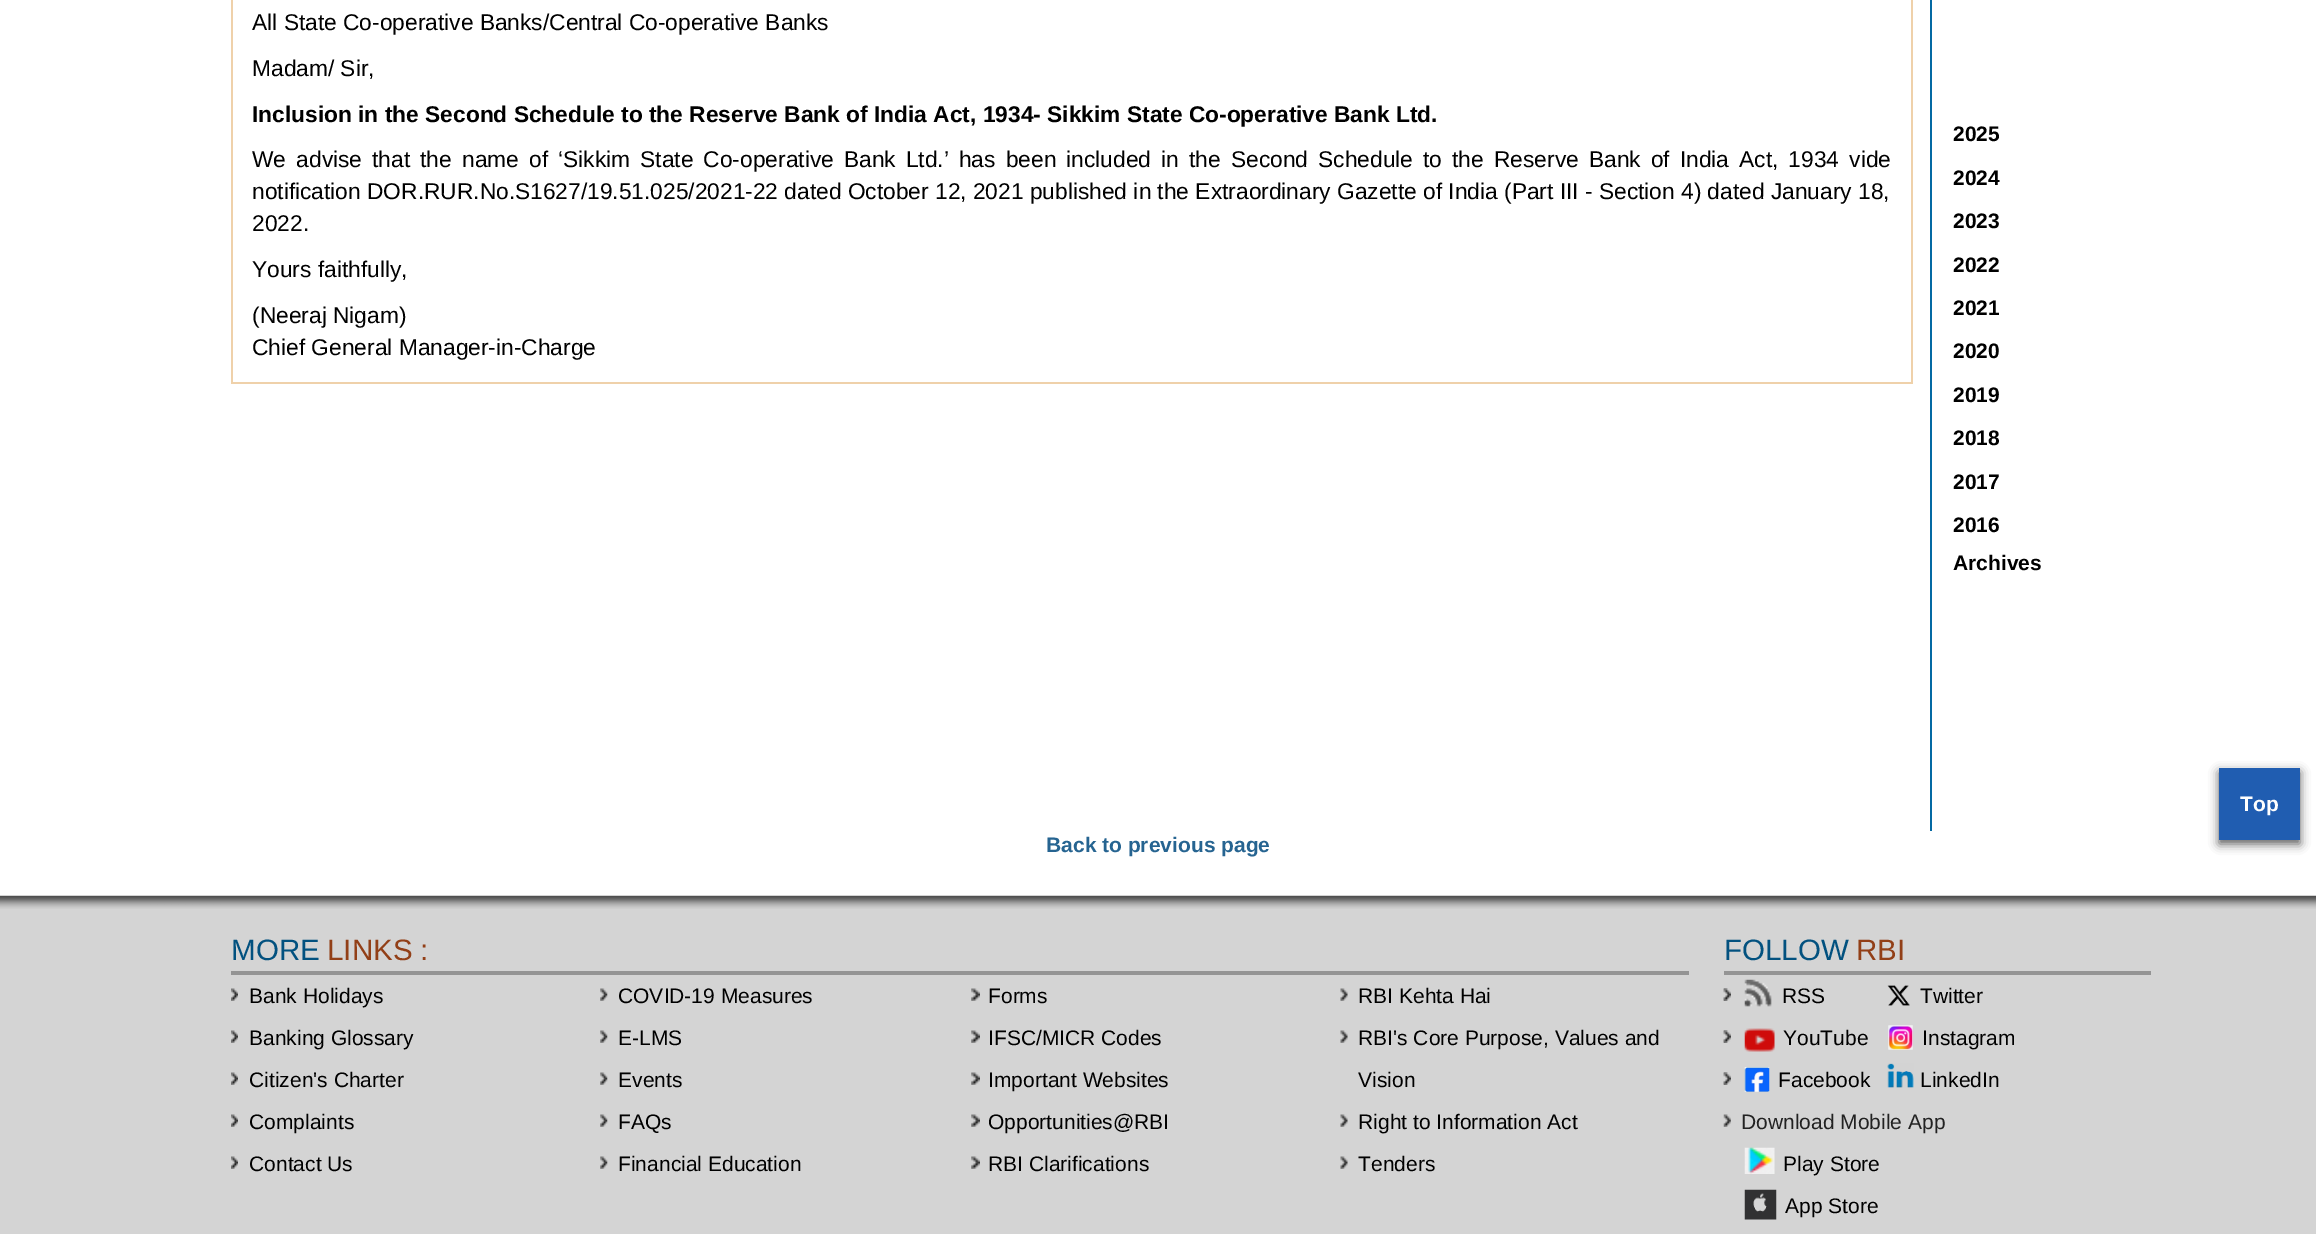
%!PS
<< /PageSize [2316 1234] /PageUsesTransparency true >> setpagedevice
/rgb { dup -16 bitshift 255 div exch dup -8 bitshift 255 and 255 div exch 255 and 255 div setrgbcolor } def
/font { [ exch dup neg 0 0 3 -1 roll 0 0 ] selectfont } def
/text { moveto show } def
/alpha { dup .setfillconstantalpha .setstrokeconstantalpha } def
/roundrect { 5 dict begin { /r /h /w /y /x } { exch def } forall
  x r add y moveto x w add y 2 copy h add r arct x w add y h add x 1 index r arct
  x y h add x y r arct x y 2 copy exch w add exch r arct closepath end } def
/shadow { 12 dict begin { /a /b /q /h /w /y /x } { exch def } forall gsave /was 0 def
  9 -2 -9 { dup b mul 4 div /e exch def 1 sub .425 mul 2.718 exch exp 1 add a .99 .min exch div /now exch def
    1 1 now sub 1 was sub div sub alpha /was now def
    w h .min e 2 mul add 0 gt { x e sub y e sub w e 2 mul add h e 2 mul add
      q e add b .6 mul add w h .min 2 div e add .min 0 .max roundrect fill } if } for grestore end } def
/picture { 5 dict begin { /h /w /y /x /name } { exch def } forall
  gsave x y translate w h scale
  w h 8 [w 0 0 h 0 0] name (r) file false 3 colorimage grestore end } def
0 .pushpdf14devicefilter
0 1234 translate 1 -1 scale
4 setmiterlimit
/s1 { /LiberationSans-Regular 22.75 font 16#000000 rgb } def
/s2 { /LiberationSans-Bold 22.75 font 16#000000 rgb } def
/s3 { /LiberationSans-Bold 21 font 16#000000 rgb } def
/s4 { /LiberationSans-Bold 21 font 16#FFFFFF rgb } def
/s5 { /LiberationSans-Bold 21 font 16#266491 rgb } def
/s6 { /LiberationSans-Regular 29.5 font 16#02517F rgb } def
/s7 { /LiberationSans-Regular 29.5 font 16#923F17 rgb } def
/s8 { /LiberationSans-Regular 21 font 16#000000 rgb } def
/s9 { /LiberationSans-Regular 21 font 16#222222 rgb } def
16#FFFFFF rgb
0 0 2316 1234 rectfill
16#0469A3 rgb
1930 0 2 831 rectfill
16#EFD1AA rgb
1911 0 2 383 rectfill
231 382 1682 2 rectfill
231 0 2 383 rectfill
s1
(All State Co-operative Banks/Central Co-operative Banks) 252 30 text
(Madam/ Sir,) 252 76 text
s2
(Inclusion in the Second Schedule to the Reserve Bank of India Act, 1934- Sikkim State Co-operative Bank Ltd.) 252 122 text
/LiberationSans-Regular 22.75 font
252 167 moveto 3.8 0 32 (We advise that the name of ‘Sikkim State Co-operative Bank Ltd.’ has been included in the Second Schedule to the Reserve Bank of India Act, 1934 vide) widthshow
(notification DOR.RUR.No.S1627/19.51.025/2021-22 dated October 12, 2021 published in the Extraordinary Gazette of India \(Part III - Section 4\) dated January 18,) 252 199 text
(2022.) 252 231 text
(Yours faithfully,) 252 277 text
(\(Neeraj Nigam\)) 252 323 text
(Chief General Manager-in-Charge) 252 355 text
s3
(2025) 1953 141 text
(2024) 1953 185 text
(2023) 1953 228 text
(2022) 1953 272 text
(2021) 1953 315 text
(2020) 1953 358 text
(2019) 1953 402 text
(2018) 1953 445 text
(2017) 1953 489 text
(2016) 1953 532 text
(Archives) 1953 570 text
2219 772 81 72 0 5 0.65 shadow
16#205DB1 rgb
2219 768 81 72 rectfill
s4
(Top) 2240 811 text
s5
(Back to previous page) 1046 852 text
16#D4D4D4 rgb
0 909 2316 325 rectfill
(pic1.raw) 0 895 2316 14 picture
16#949494 rgb
231 971 1458 4 rectfill
s6
(MORE) 231 960 text
s7
(LINKS :) 327 960 text
(pic2.raw) 231 988 7 13 picture
s8
(Bank Holidays) 249 1003 text
(pic3.raw) 600 988 8 13 picture
(COVID-19 Measures) 618 1003 text
(pic4.raw) 971 988 9 13 picture
(Forms) 988 1003 text
(pic5.raw) 1340 988 8 13 picture
(RBI Kehta Hai) 1358 1003 text
(pic6.raw) 231 1030 7 13 picture
(Banking Glossary) 249 1045 text
(pic7.raw) 600 1030 8 13 picture
(E-LMS) 618 1045 text
(pic8.raw) 971 1030 9 13 picture
(IFSC/MICR Codes) 988 1045 text
(pic9.raw) 1340 1030 8 13 picture
(RBI's Core Purpose, Values and) 1358 1045 text
(Vision) 1358 1087 text
(pic2.raw) 231 1072 7 13 picture
(Citizen's Charter) 249 1087 text
(pic3.raw) 600 1072 8 13 picture
(Events) 618 1087 text
(pic4.raw) 971 1072 9 13 picture
(Important Websites) 988 1087 text
(pic6.raw) 231 1114 7 13 picture
(Complaints) 249 1129 text
(pic7.raw) 600 1114 8 13 picture
(FAQs) 618 1129 text
(pic8.raw) 971 1114 9 13 picture
(Opportunities@RBI) 988 1129 text
(pic9.raw) 1340 1114 8 13 picture
(Right to Information Act) 1358 1129 text
(pic2.raw) 231 1156 7 13 picture
(Contact Us) 249 1171 text
(pic3.raw) 600 1156 8 13 picture
(Financial Education) 618 1171 text
(pic4.raw) 971 1156 9 13 picture
(RBI Clarifications) 988 1171 text
(pic5.raw) 1340 1156 8 13 picture
(Tenders) 1358 1171 text
16#949494 rgb
1724 971 427 4 rectfill
s6
(FOLLOW) 1724 960 text
s7
(RBI) 1856 960 text
(pic12.raw) 1723 988 8 13 picture
(pic10.raw) 1723 988 8 13 picture
(pic11.raw) 1744 979 28 28 picture
s8
(RSS) 1782 1003 text
(pic13.raw) 1887 985 23 21 picture
(Twitter) 1920 1003 text
(pic16.raw) 1723 1030 8 13 picture
(pic14.raw) 1723 1030 8 13 picture
(pic15.raw) 1744 1028 31 24 picture
(YouTube) 1783 1045 text
(pic17.raw) 1888 1025 25 25 picture
(Instagram) 1922 1045 text
(pic12.raw) 1723 1072 8 13 picture
(pic10.raw) 1723 1072 8 13 picture
(pic18.raw) 1744 1067 26 25 picture
(Facebook) 1778 1087 text
(pic19.raw) 1887 1063 27 25 picture
(LinkedIn) 1920 1087 text
(pic16.raw) 1723 1114 8 13 picture
s9
(Download Mobile App) 1741 1129 text
(pic20.raw) 1744 1147 31 27 picture
s8
(Play Store) 1783 1171 text
(pic21.raw) 1744 1189 33 31 picture
(App Store) 1785 1213 text
.poppdf14devicefilter showpage
